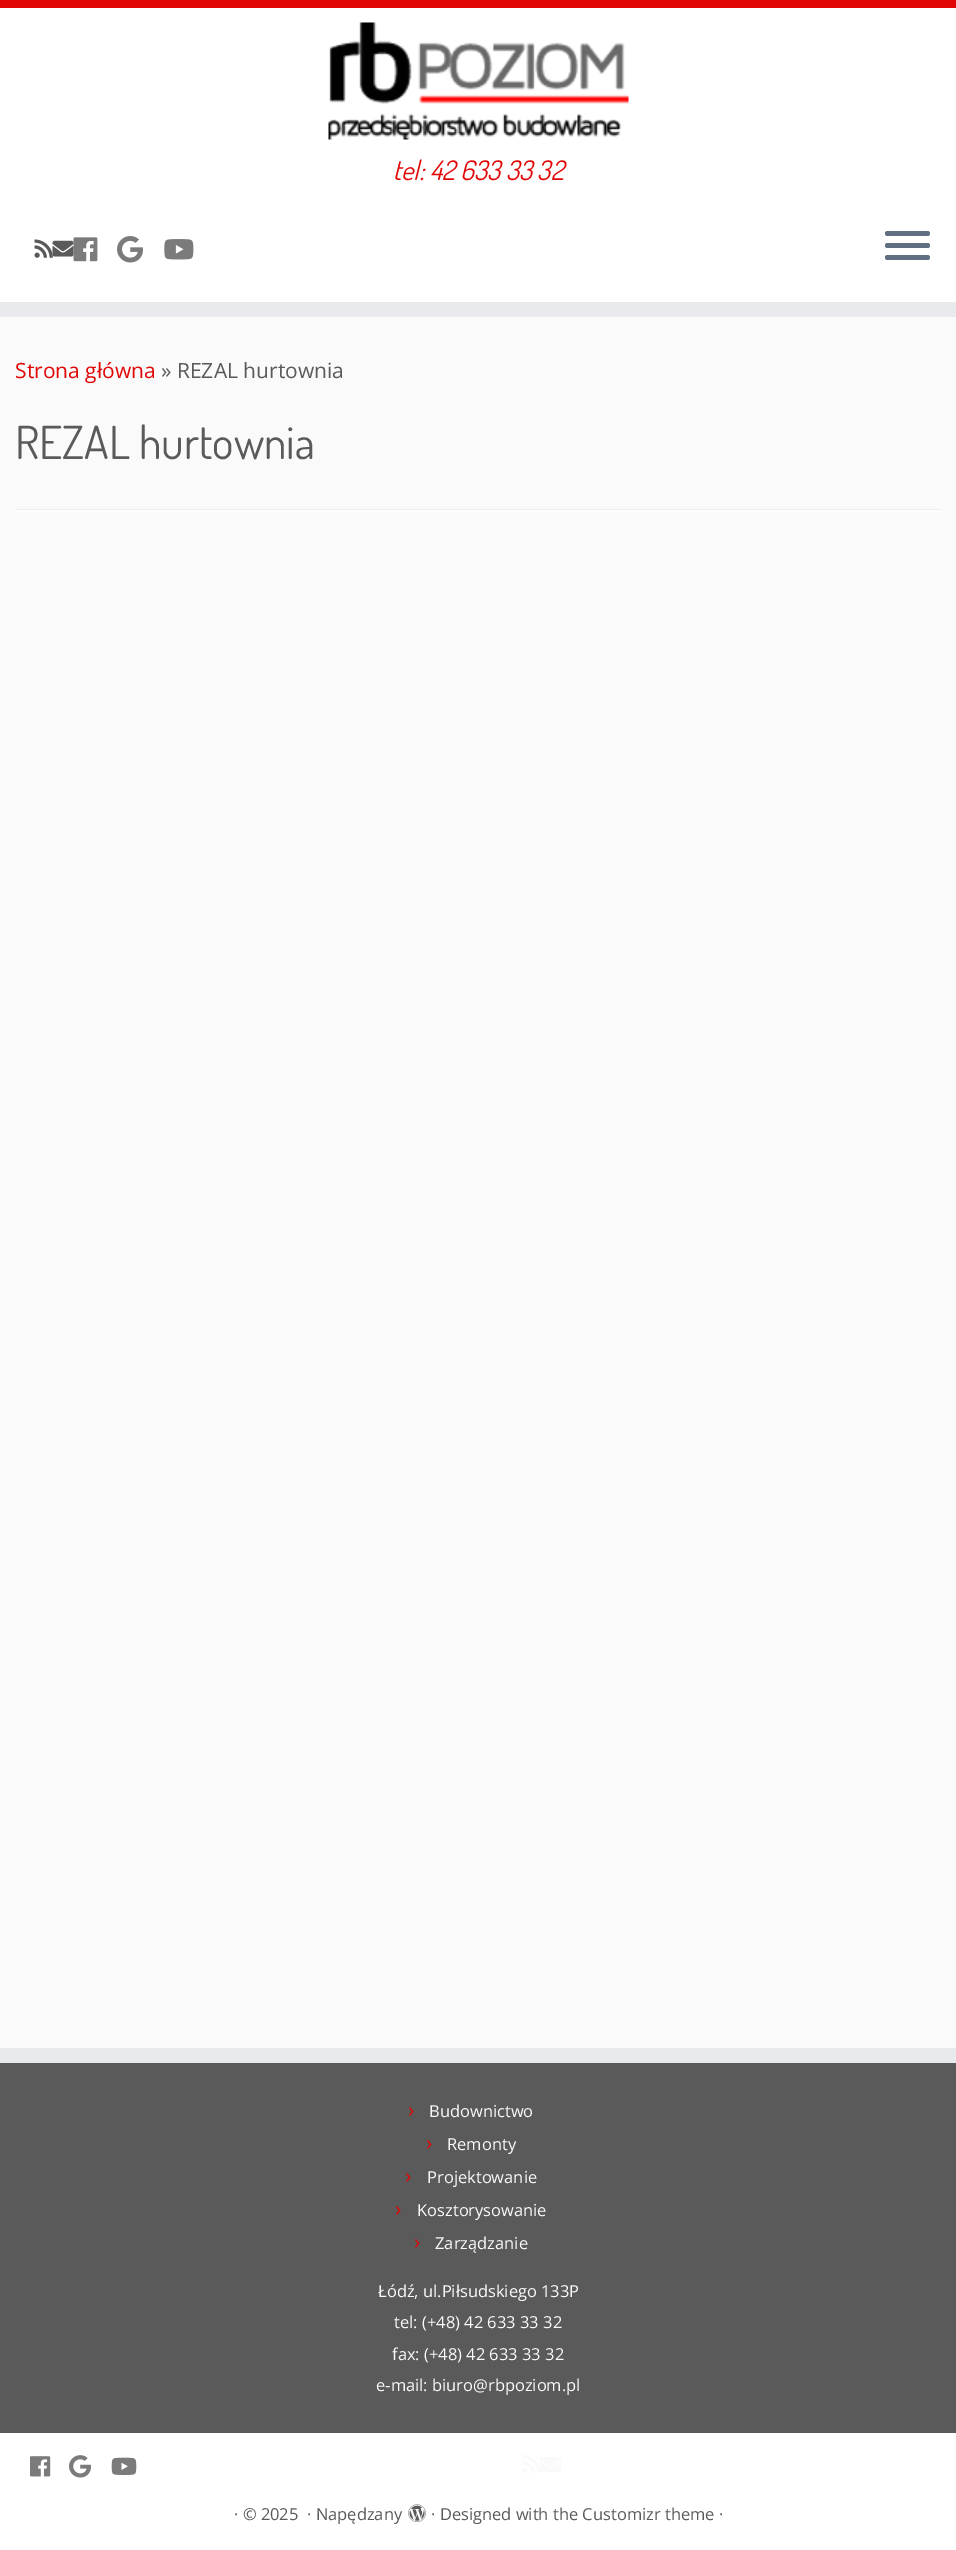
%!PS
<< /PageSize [956 2550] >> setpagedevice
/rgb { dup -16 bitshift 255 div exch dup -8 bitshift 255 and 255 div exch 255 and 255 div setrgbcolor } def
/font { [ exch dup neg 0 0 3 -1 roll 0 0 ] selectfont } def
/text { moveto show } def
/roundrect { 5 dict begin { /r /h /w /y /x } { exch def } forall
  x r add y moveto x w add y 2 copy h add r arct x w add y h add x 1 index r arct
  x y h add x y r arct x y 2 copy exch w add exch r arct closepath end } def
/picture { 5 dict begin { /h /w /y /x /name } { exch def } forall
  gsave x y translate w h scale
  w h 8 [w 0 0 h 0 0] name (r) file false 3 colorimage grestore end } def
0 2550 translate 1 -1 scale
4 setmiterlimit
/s1 { /Dosis-Italic 27 font 16#E10707 rgb } def
/s2 { /OpenSans-Regular 21 font 16#E10707 rgb } def
/s3 { /OpenSans-Regular 21 font 16#5A5A5A rgb } def
/s4 { /Dosis-Regular 45.5 font 16#5A5A5A rgb } def
/s5 { /OpenSans-Regular 16.5 font 16#FAFAFA rgb } def
/s6 { /OpenSans-Regular 16.5 font 16#5A5A5A rgb } def
16#FAFAFA rgb
0 0 956 2550 rectfill
16#FFFFFF rgb
0 8 956 294 rectfill
16#E10707 rgb
0 0 956 8 rectfill
16#E9EAEE rgb
0 302 956 15 rectfill
(pic1.raw) 328 22 301 118 picture
s1
(tel: 42 633 33 32) 393 180 text
(pic2.raw) 34 239 19 19 picture
(pic3.raw) 52 240 22 17 picture
(pic4.raw) 73 237 25 25 picture
(pic5.raw) 117 236 26 27 picture
(pic6.raw) 164 239 30 21 picture
16#5F6F81 rgb
885 231 45 5 2.5 roundrect fill
885 243 45 5 2.5 roundrect fill
885 255 45 5 2.5 roundrect fill
s2
(Strona główna) 15 378 text
s3
(» REZAL hurtownia) 161 378 text
s4
(REZAL hurtownia) 15 459 text
16#EEEEEE rgb
15 509 927 1 rectfill
16#FFFFFF rgb
15 510 927 2 rectfill
16#5A5A5A rgb
0 2063 956 370 rectfill
16#E9EAEE rgb
0 2048 956 15 rectfill
s2
(›) 408 2117 text
s5
(Budownictwo) 429 2117 text
s2
(›) 426 2150 text
s5
(Remonty) 447 2150 text
s2
(›) 405 2183 text
s5
(Projektowanie) 427 2183 text
s2
(›) 395 2216 text
s5
(Kosztorysowanie) 417 2216 text
s2
(›) 414 2249 text
s5
(Zarządzanie) 435 2249 text
(Łódź, ul.Piłsudskiego 133P) 378 2297 text
(tel: \(+48\) 42 633 33 32) 394 2328 text
(fax: \(+48\) 42 633 33 32) 392 2360 text
(e-mail: biuro@rbpoziom.pl) 376 2391 text
16#FFFFFF rgb
0 2433 956 117 rectfill
(pic7.raw) 30 2456 21 21 picture
(pic8.raw) 69 2455 22 23 picture
(pic9.raw) 111 2457 26 18 picture
(pic10.raw) 522 2455 18 18 picture
(pic11.raw) 540 2457 21 15 picture
s6
(· © 2025) 234 2520 text
(· Napędzany) 307 2520 text
(pic12.raw) 408 2504 18 18 picture
(· Designed with the Customizr theme ·) 431 2520 text
showpage
